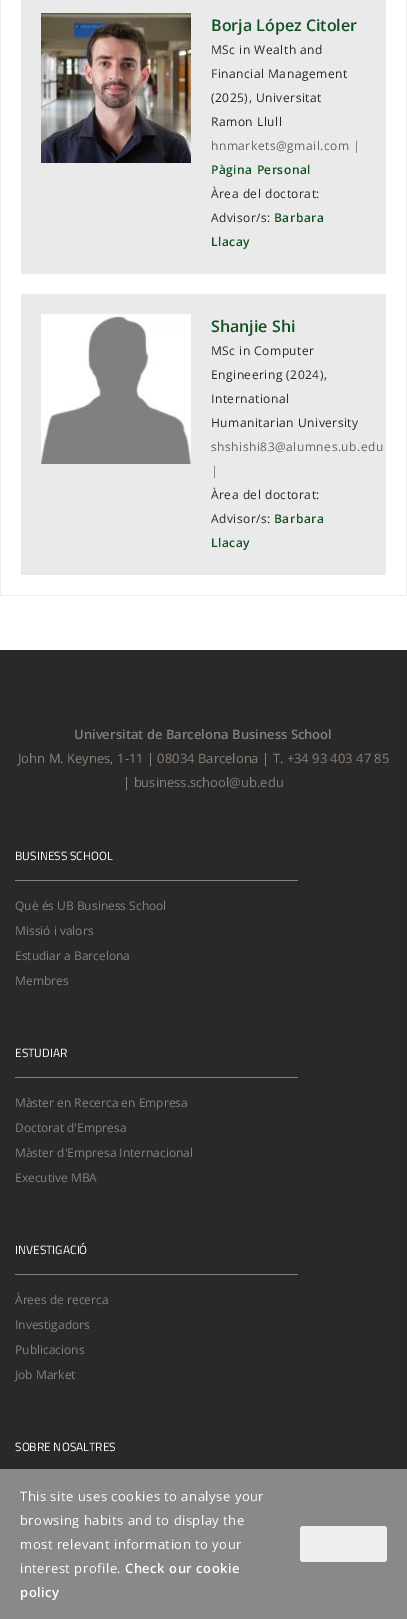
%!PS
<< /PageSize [407 1619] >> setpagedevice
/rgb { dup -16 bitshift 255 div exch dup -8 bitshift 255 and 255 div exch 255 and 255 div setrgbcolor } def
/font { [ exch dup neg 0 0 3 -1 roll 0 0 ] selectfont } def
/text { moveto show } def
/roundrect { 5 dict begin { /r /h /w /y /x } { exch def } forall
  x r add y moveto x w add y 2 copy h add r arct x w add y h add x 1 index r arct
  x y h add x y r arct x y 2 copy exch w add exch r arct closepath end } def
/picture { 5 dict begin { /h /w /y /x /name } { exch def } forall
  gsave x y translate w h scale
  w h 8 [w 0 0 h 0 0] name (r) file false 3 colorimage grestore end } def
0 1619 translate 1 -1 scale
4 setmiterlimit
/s1 { /OpenSans-SemiBold 16 font 16#125222 rgb } def
/s2 { /OpenSans-SemiBold 13 font 16#8A8077 rgb } def
/s3 { /OpenSans-Regular 13 font 16#8A8077 rgb } def
/s4 { /TitilliumWeb-Regular 12 font 16#FFFFFF rgb } def
/s5 { /OpenSans-Regular 12 font 16#8A8077 rgb } def
16#FFFFFF rgb
0 0 407 1619 rectfill
16#EEEEEE rgb
406 0 1 596 rectfill
0 595 407 1 rectfill
0 0 1 596 rectfill
16#EAEAEA rgb
21 0 365 274 rectfill
(pic1.raw) 41 13 150 150 picture
s1
(Borja López Citoler) 211 31 text
/OpenSans-Regular 12 font
16#292929 rgb
211 54 moveto 0.5 0 (MSc in Wealth and) ashow
211 78 moveto 0.5 0 (Financial Management) ashow
211 102 moveto 0.5 0 (\(2025\), Universitat) ashow
211 126 moveto 0.5 0 (Ramon Llull) ashow
16#666666 rgb
211 150 moveto 0.5 0 (hnmarkets@gmail.com |) ashow
/OpenSans-SemiBold 12 font
16#125222 rgb
211 174 moveto 0.5 0 (Pàgina Personal) ashow
/OpenSans-Regular 12 font
16#292929 rgb
211 198 moveto 0.5 0 (Àrea del doctorat:) ashow
211 222 moveto 0.5 0 (Advisor/s:) ashow
/OpenSans-SemiBold 12 font
16#125222 rgb
274 222 moveto 0.5 0 (Barbara) ashow
211 246 moveto 0.5 0 (Llacay) ashow
16#EAEAEA rgb
21 294 365 281 rectfill
(pic2.raw) 41 314 150 150 picture
s1
(Shanjie Shi) 211 332 text
/OpenSans-Regular 12 font
16#292929 rgb
211 355 moveto 0.5 0 (MSc in Computer) ashow
211 379 moveto 0.5 0 (Engineering \(2024\),) ashow
211 403 moveto 0.5 0 (International) ashow
211 427 moveto 0.5 0 (Humanitarian University) ashow
16#666666 rgb
211 451 moveto 0.5 0 (shshishi83@alumnes.ub.edu) ashow
211 475 moveto 0.5 0 (|) ashow
16#292929 rgb
211 499 moveto 0.5 0 (Àrea del doctorat:) ashow
211 523 moveto 0.5 0 (Advisor/s:) ashow
/OpenSans-SemiBold 12 font
16#125222 rgb
274 523 moveto 0.5 0 (Barbara) ashow
211 547 moveto 0.5 0 (Llacay) ashow
16#292929 rgb
0 650 407 819 rectfill
s2
(Universitat de Barcelona Business School) 74 739 text
s3
(John M. Keynes, 1-11 | 08034 Barcelona | T. +34 93 403 47 85) 18 763 text
(| business.school@ub.edu) 123 787 text
s4
(BUSINESS SCHOOL) 15 860 text
16#8A8077 rgb
15 880 283 1 rectfill
s5
(Què és UB Business School) 15 910 text
(Missió i valors) 15 935 text
(Estudiar a Barcelona) 15 960 text
(Membres) 15 985 text
s4
(ESTUDIAR) 15 1057 text
16#8A8077 rgb
15 1077 283 1 rectfill
s5
(Màster en Recerca en Empresa) 15 1107 text
(Doctorat d'Empresa) 15 1132 text
(Màster d'Empresa Internacional) 15 1157 text
(Executive MBA) 15 1182 text
s4
(INVESTIGACIÓ) 15 1254 text
16#8A8077 rgb
15 1274 283 1 rectfill
s5
(Àrees de recerca) 15 1304 text
(Investigadors) 15 1329 text
(Publicacions) 15 1354 text
(Job Market) 15 1379 text
s4
(SOBRE NOSALTRES) 15 1451 text
16#898989 rgb
0 1469 407 150 rectfill
/OpenSans-Regular 13 font
16#FFFFFF rgb
20 1501 moveto 0.5 0 (This site uses cookies to analyse your) ashow
20 1525 moveto 0.5 0 (browsing habits and to display the) ashow
20 1549 moveto 0.5 0 (most relevant information to your) ashow
20 1573 moveto 0.5 0 (interest profile.) ashow
/OpenSans-SemiBold 13 font
125 1573 moveto 0.5 0 (Check our cookie) ashow
20 1597 moveto 0.5 0 (policy) ashow
16#EFEFEF rgb
300 1526 87 36 3 roundrect fill
showpage
